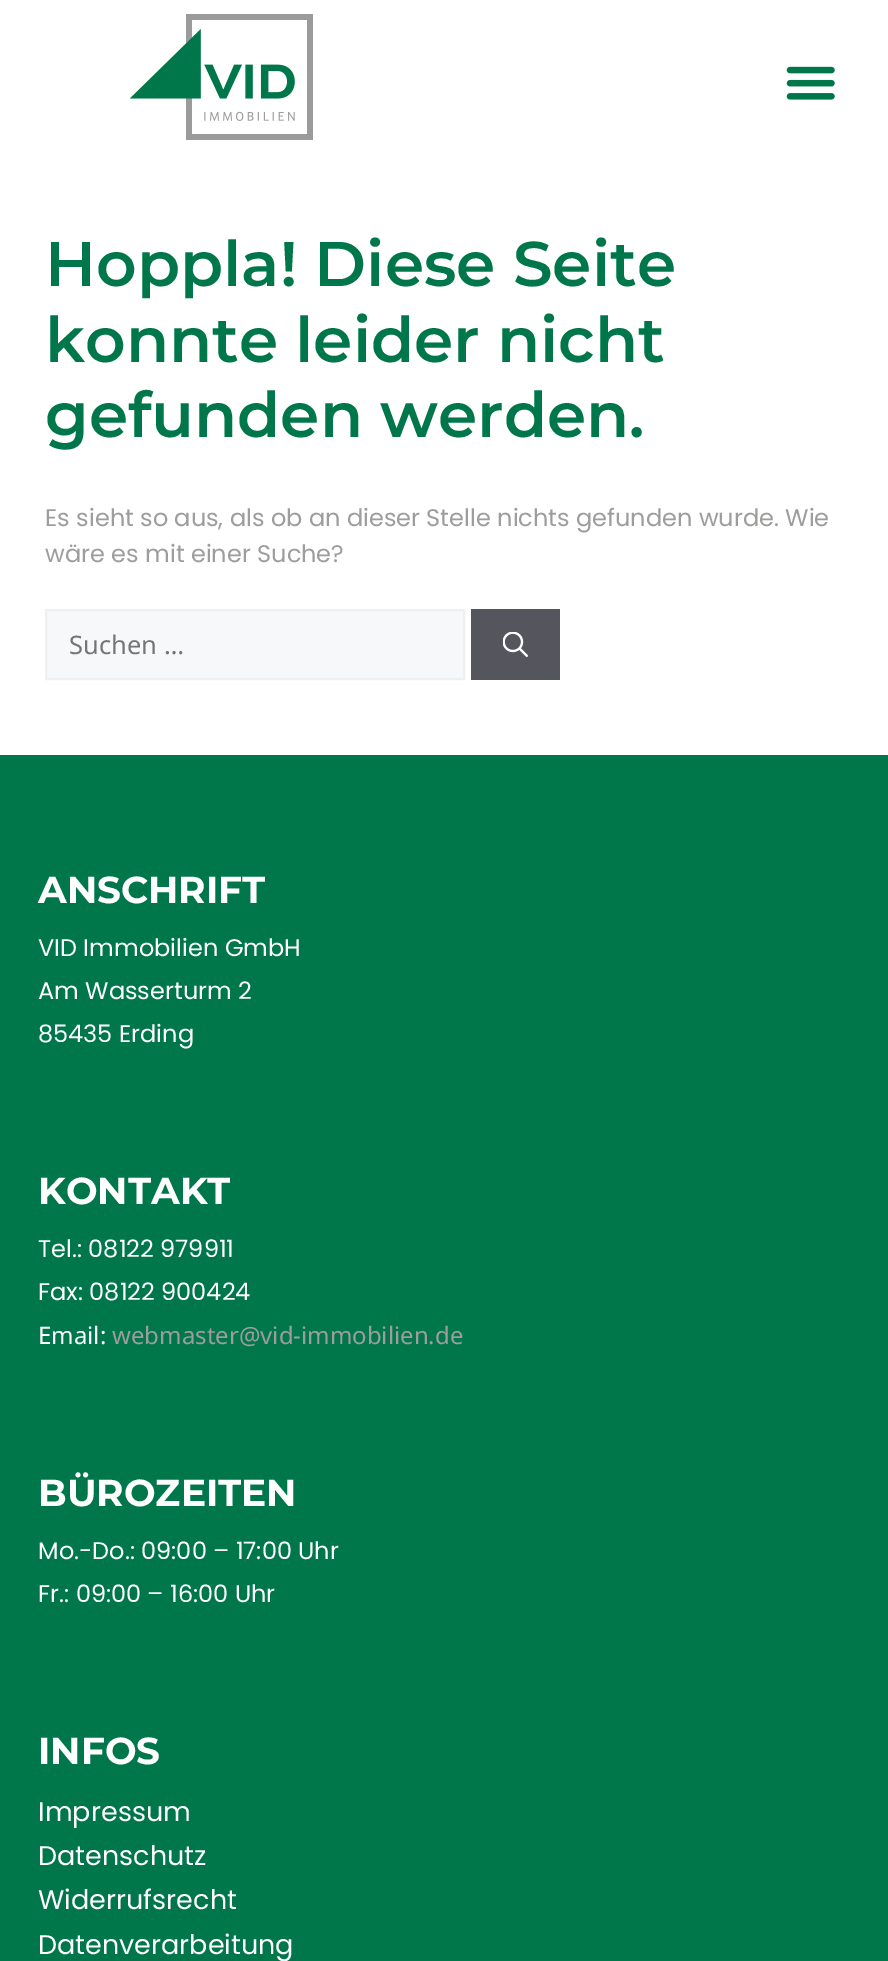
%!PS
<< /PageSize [888 1961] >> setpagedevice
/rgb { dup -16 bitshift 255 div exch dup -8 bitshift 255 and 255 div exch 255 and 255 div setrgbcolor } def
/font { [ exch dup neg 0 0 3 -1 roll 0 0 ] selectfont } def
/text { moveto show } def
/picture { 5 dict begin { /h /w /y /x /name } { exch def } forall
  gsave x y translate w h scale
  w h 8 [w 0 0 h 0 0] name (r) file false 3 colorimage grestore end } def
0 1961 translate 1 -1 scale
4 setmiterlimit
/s1 { /Montserrat-SemiBold 63 font 16#00774A rgb } def
/s2 { /Poppins-Regular 24 font 16#9D9D9C rgb } def
/s3 { /NotoSans-Regular 25.5 font 16#757575 rgb } def
/s4 { /Montserrat-Bold 37.5 font 16#FFFFFF rgb } def
/s5 { /Poppins-Regular 24 font 16#FFFFFF rgb } def
/s6 { /NotoSans-Regular 24 font 16#FFFFFF rgb } def
/s7 { /NotoSans-Regular 24 font 16#9D9D9C rgb } def
/s8 { /Poppins-Regular 27 font 16#FFFFFF rgb } def
16#FFFFFF rgb
0 0 888 1961 rectfill
(pic1.raw) 129 14 184 126 picture
(pic2.raw) 786 66 49 34 picture
s1
(Hoppla! Diese Seite) 45 286 text
(konnte leider nicht) 45 362 text
(gefunden werden.) 45 437 text
s2
(Es sieht so aus, als ob an dieser Stelle nichts gefunden wurde. Wie) 45 526 text
(wäre es mit einer Suche?) 45 562 text
16#F7F8F9 rgb
46 610 moveto 464 610 lineto 464 679 lineto 46 679 lineto closepath gsave fill grestore
16#F0F0F0 rgb
2 setlinewidth
stroke
s3
(Suchen …) 69 654 text
16#55555E rgb
471 609 89 71 rectfill
(pic3.raw) 503 632 25 25 picture
16#00774A rgb
0 755 888 1206 rectfill
s4
(ANSCHRIFT) 38 903 text
s5
(VID Immobilien GmbH) 38 956 text
(Am Wasserturm 2) 38 999 text
(85435 Erding) 38 1042 text
s4
(KONTAKT) 38 1204 text
s5
(Tel.: 08122 979911) 38 1257 text
(Fax: 08122 900424) 38 1300 text
s6
(Email:) 38 1344 text
s7
(webmaster@vid-immobilien.de) 112 1344 text
s4
(BÜROZEITEN) 38 1506 text
s5
(Mo.-Do.: 09:00 – 17:00 Uhr) 38 1559 text
(Fr.: 09:00 – 16:00 Uhr) 38 1602 text
s4
(INFOS) 38 1764 text
s8
(Impressum) 38 1821 text
(Datenschutz) 38 1865 text
(Widerrufsrecht) 38 1909 text
(Datenverarbeitung) 38 1954 text
showpage
